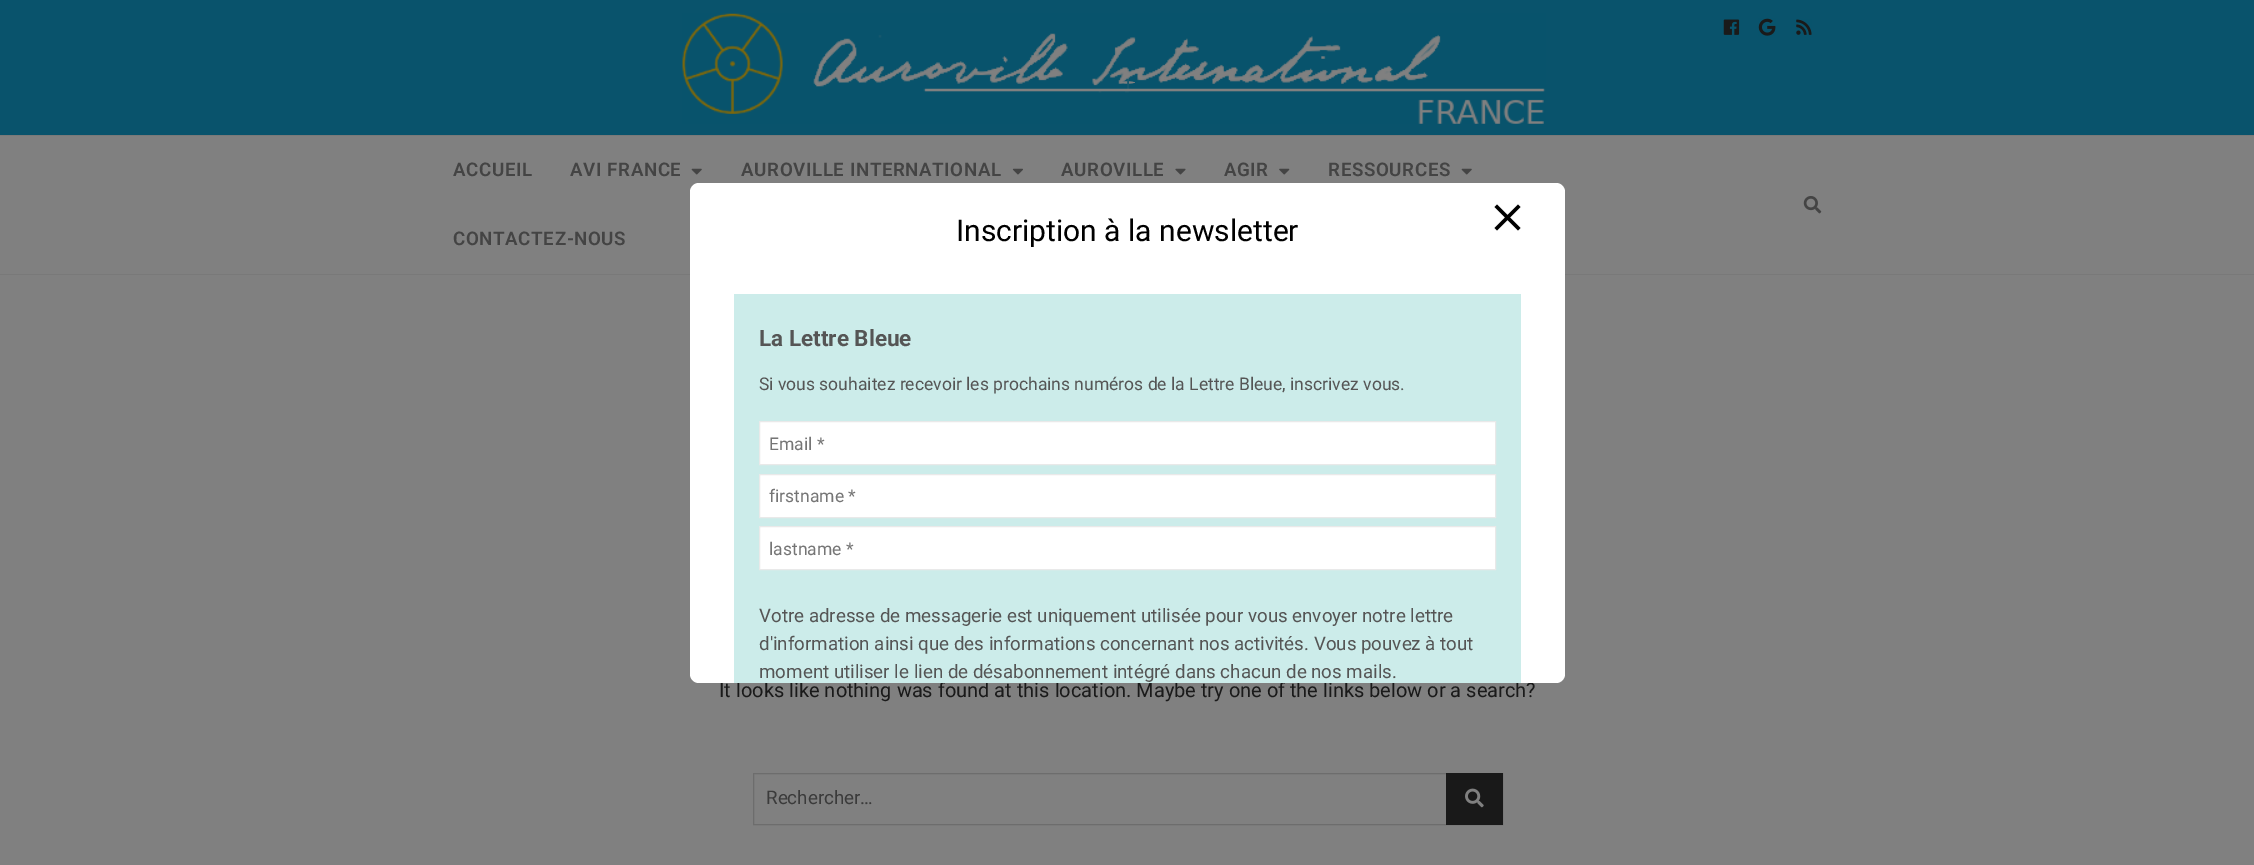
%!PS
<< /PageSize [2254 865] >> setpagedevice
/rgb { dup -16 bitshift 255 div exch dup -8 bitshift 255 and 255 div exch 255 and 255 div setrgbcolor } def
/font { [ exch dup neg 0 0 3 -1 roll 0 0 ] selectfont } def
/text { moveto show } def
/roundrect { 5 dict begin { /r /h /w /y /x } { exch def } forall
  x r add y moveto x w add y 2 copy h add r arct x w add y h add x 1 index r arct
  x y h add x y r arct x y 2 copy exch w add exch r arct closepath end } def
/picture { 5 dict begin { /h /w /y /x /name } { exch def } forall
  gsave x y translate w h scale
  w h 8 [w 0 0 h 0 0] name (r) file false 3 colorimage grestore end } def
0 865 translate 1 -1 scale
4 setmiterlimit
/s1 { /Roboto-Regular 20 font 16#1A1A1A rgb } def
/s2 { /Roboto-Regular 18.75 font 16#3B3B3B rgb } def
/s3 { /Roboto-Regular 30 font 16#000000 rgb } def
/s4 { /Roboto-Bold 22.5 font 16#555555 rgb } def
/s5 { /Roboto-Regular 17.5 font 16#555555 rgb } def
/s6 { /Roboto-Regular 17.5 font 16#757575 rgb } def
/s7 { /Roboto-Regular 18.75 font 16#555555 rgb } def
16#808080 rgb
0 0 2254 865 rectfill
16#09536C rgb
0 0 2254 135 rectfill
(pic1.raw) 1723 19 17 16 picture
(pic2.raw) 1758 18 18 18 picture
(pic3.raw) 1796 19 16 16 picture
16#797979 rgb
0 135 2254 1 rectfill
16#808080 rgb
1127.5 81.5 moveto 1131.5 81.5 1135 82 1135 82.5 curveto 1135 83 1131.5 83.5 1127.5 83.5 curveto 1123.5 83.5 1120 83 1120 82.5 curveto 1120 82 1123.5 81.5 1127.5 81.5 curveto closepath fill
(pic4.raw) 682 13 864 111 picture
16#797979 rgb
0 274 2254 1 rectfill
/Roboto-SemiBold 18.75 font
16#444444 rgb
453 176 moveto 0.6 0 (ACCUEIL) ashow
570 176 moveto 0.6 0 (AVI FRANCE) ashow
(pic5.raw) 691 168 11 7 picture
741 176 moveto 0.6 0 (AUROVILLE INTERNATIONAL) ashow
(pic6.raw) 1012 168 11 7 picture
1061 176 moveto 0.6 0 (AUROVILLE) ashow
(pic7.raw) 1175 168 11 7 picture
1224 176 moveto 0.6 0 (AGIR) ashow
(pic8.raw) 1279 168 11 7 picture
1328 176 moveto 0.6 0 (RESSOURCES) ashow
(pic5.raw) 1461 168 11 7 picture
453 245 moveto 0.6 0 (CONTACTEZ-NOUS) ashow
(pic9.raw) 1803 196 19 18 picture
s1
(It looks like nothing was found at this location. Maybe try one of the links below or a search?) 719 697 text
16#6D6D6D rgb
753.5 773.5 749 51 rectstroke
s2
(Rechercher…) 766 804 text
16#191919 rgb
1446 773 57 52 rectfill
(pic10.raw) 1465 788 19 20 picture
16#FFFFFF rgb
690 183 875 500 9 roundrect fill
s3
(Inscription à la newsletter) 956 241 text
(pic11.raw) 1494 204 27 27 picture
16#CCECEA rgb
734 294 787 389 rectfill
s4
(La Lettre Bleue) 759 346 text
s5
(Si vous souhaitez recevoir les prochains numéros de la Lettre Bleue, inscrivez vous.) 759 390 text
16#FFFFFF rgb
759.5 421.5 moveto 1495.5 421.5 lineto 1495.5 464.5 lineto 759.5 464.5 lineto closepath gsave fill grestore
16#E9E9E9 rgb
stroke
s6
(Email *) 769 450 text
16#FFFFFF rgb
759.5 474.5 moveto 1495.5 474.5 lineto 1495.5 517.5 lineto 759.5 517.5 lineto closepath gsave fill grestore
16#E9E9E9 rgb
stroke
s6
(firstname *) 769 502 text
16#FFFFFF rgb
759.5 526.5 moveto 1495.5 526.5 lineto 1495.5 569.5 lineto 759.5 569.5 lineto closepath gsave fill grestore
16#E9E9E9 rgb
stroke
s6
(lastname *) 769 555 text
s7
(Votre adresse de messagerie est uniquement utilisée pour vous envoyer notre lettre) 759 622 text
(d'information ainsi que des informations concernant nos activités. Vous pouvez à tout) 759 650 text
(moment utiliser le lien de désabonnement intégré dans chacun de nos mails.) 759 678 text
showpage
